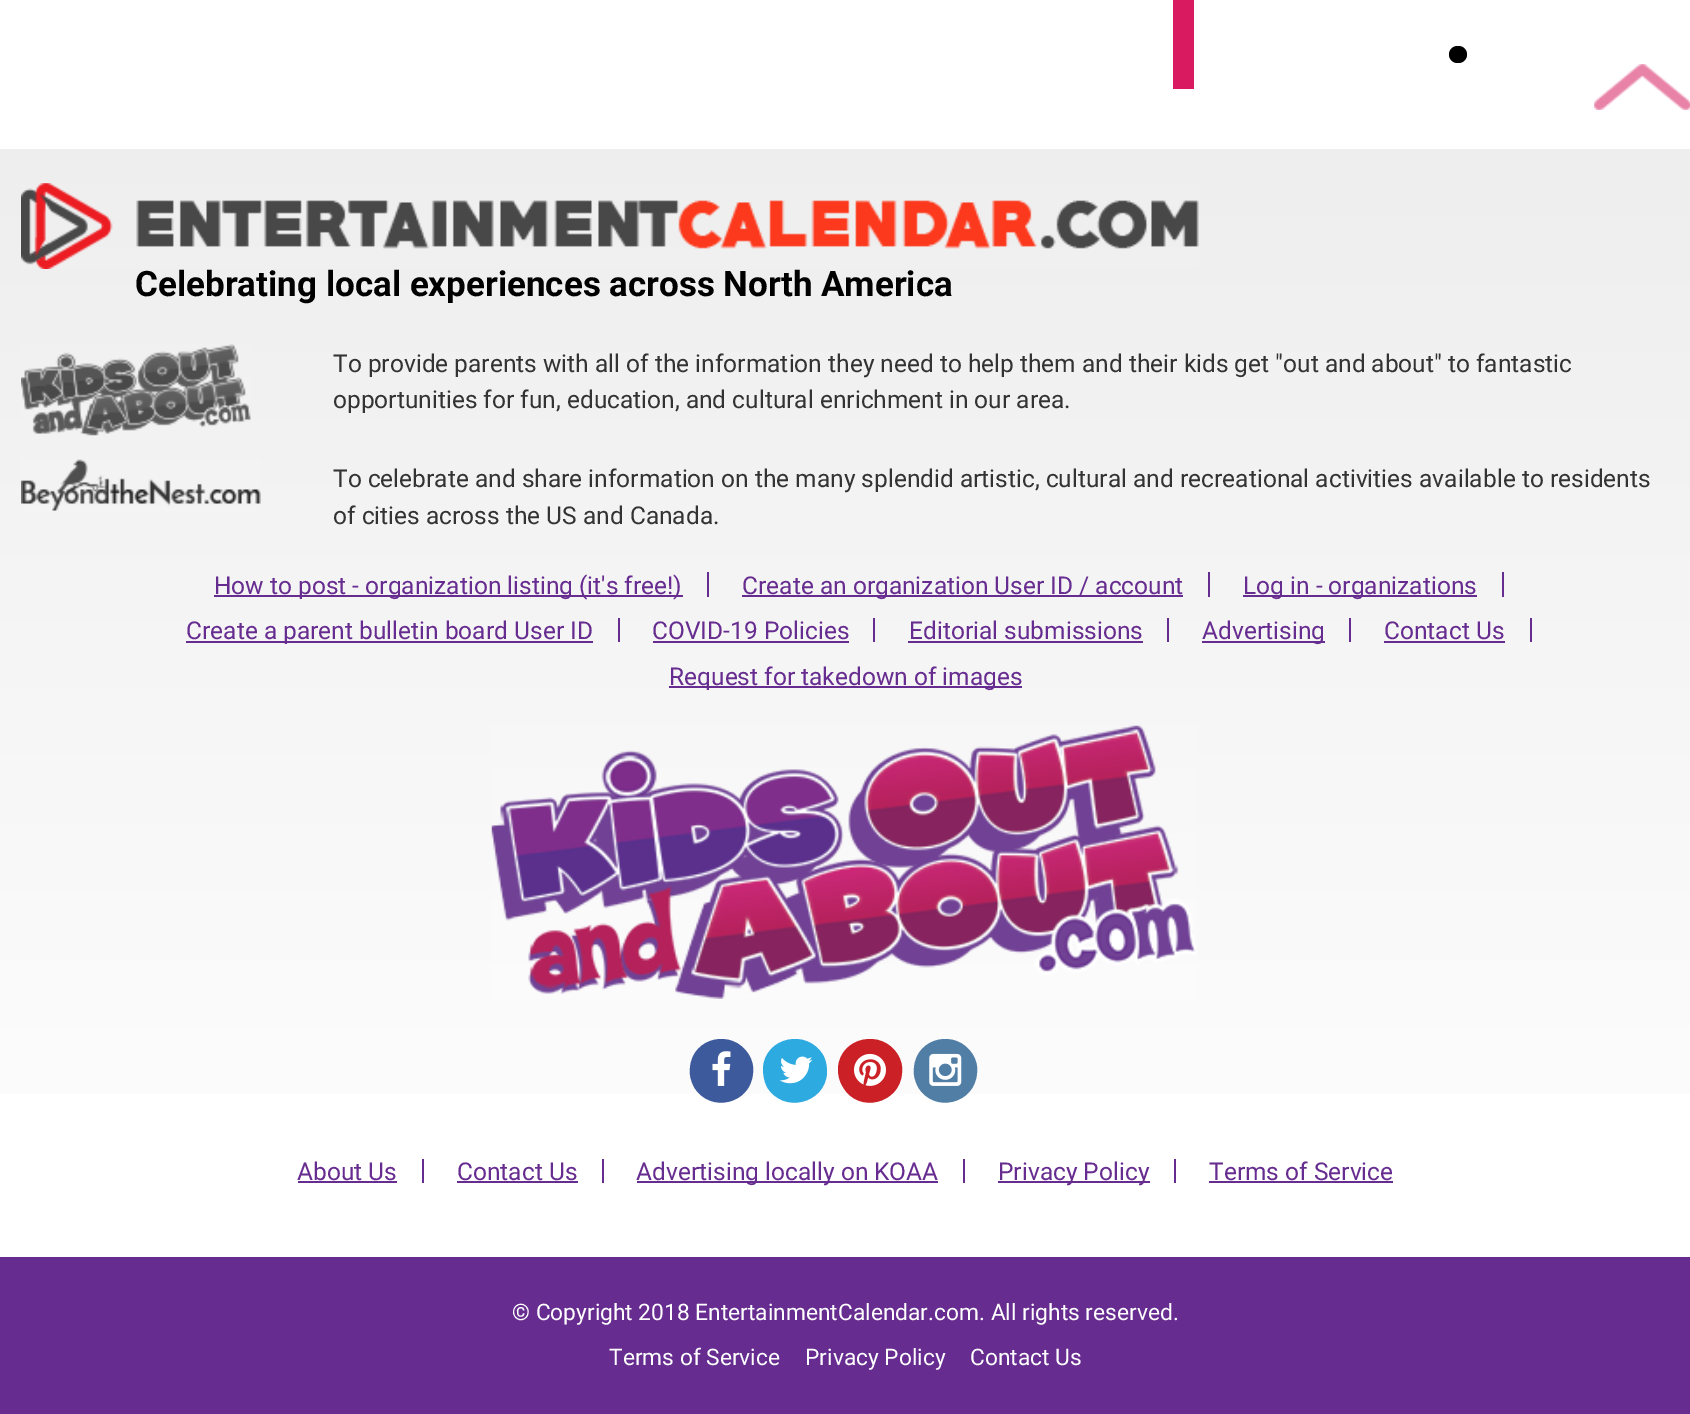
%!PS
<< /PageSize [1690 1414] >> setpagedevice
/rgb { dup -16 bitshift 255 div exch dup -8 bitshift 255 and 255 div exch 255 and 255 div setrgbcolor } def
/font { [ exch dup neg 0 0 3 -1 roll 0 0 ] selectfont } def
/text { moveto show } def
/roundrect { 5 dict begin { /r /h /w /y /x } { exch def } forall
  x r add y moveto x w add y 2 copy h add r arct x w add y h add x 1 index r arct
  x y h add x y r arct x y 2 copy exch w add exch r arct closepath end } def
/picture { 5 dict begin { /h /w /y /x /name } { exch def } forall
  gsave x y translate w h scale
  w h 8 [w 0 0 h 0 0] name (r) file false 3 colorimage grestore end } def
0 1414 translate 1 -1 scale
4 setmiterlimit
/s1 { /Roboto-Bold 35 font 16#000000 rgb } def
/s2 { /Roboto-Regular 24.5 font 16#333333 rgb } def
/s3 { /Roboto-Regular 24.5 font 16#672C90 rgb } def
/s4 { /Roboto-Regular 22.75 font 16#FFFFFF rgb } def
16#FFFFFF rgb
0 0 1690 1414 rectfill
16#D91A60 rgb
1173 0 21 89 rectfill
16#000000 rgb
1449 46 18 17 8.5 roundrect fill
gsave 0 149 moveto 1690 149 lineto 1690 1094 lineto 0 1094 lineto closepath clip newpath
<< /ShadingType 2 /ColorSpace /DeviceRGB /Coords [845 149 845 1257] /Extend [true true] /Function << /FunctionType 2 /Domain [0 1] /C0 [0.933 0.933 0.933] /C1 [1 1 1] /N 1 >> >> shfill grestore
(pic1.raw) 1594 64 96 46 picture
(pic2.raw) 21 183 1178 86 picture
s1
(Celebrating local experiences across North America) 135 296 text
(pic3.raw) 21 344 230 92 picture
s2
(To provide parents with all of the information they need to help them and their kids get "out and about" to fantastic) 333 372 text
(opportunities for fun, education, and cultural enrichment in our area.) 333 408 text
(pic4.raw) 21 459 240 52 picture
(To celebrate and share information on the many splendid artistic, cultural and recreational activities available to residents) 333 487 text
(of cities across the US and Canada.) 333 524 text
16#672C90 rgb
214 595 469 2 rectfill
(How to post - organization listing \(it's free!\)) 214 594 text
707 572 2 25 rectfill
742 595 441 2 rectfill
(Create an organization User ID / account) 742 594 text
1208 572 2 25 rectfill
1243 595 234 2 rectfill
(Log in - organizations) 1243 594 text
1502 572 2 25 rectfill
186 641 407 2 rectfill
(Create a parent bulletin board User ID) 186 639 text
618 618 2 24 rectfill
(COVID-19 Policies) 652 639 text
653 641 196 2 rectfill
873 618 2 24 rectfill
(Editorial submissions) 909 639 text
908 641 235 2 rectfill
1167 618 2 24 rectfill
1202 641 123 2 rectfill
(Advertising) 1202 639 text
1349 618 2 24 rectfill
(Contact Us) 1384 639 text
1384 641 121 2 rectfill
1530 618 2 24 rectfill
669 686 353 2 rectfill
(Request for takedown of images) 669 685 text
(pic5.raw) 491 725 706 274 picture
16#3D5A9C rgb
749 1055 moveto 752 1060 754 1066 753 1073 curveto 751 1104 710 1114 694 1087 curveto 691 1081 689 1075 690 1068 curveto 692 1037 733 1028 749 1055 curveto closepath fill
(pic6.raw) 712 1051 19 35 picture
16#2DAAE0 rgb
823 1055 moveto 826 1060 827 1066 827 1073 curveto 825 1104 783 1114 767 1087 curveto 764 1081 763 1075 763 1068 curveto 765 1037 807 1028 823 1055 curveto closepath fill
(pic7.raw) 779 1056 34 28 picture
16#CB2026 rgb
898 1055 moveto 901 1060 903 1066 902 1073 curveto 900 1104 858 1114 843 1087 curveto 839 1081 838 1075 838 1068 curveto 840 1037 882 1028 898 1055 curveto closepath fill
(pic8.raw) 854 1053 32 33 picture
16#517EA5 rgb
973 1055 moveto 976 1060 978 1066 977 1073 curveto 975 1104 934 1114 918 1087 curveto 915 1081 913 1075 914 1068 curveto 916 1037 957 1028 973 1055 curveto closepath fill
(pic9.raw) 929 1053 33 33 picture
s3
(About Us) 297 1180 text
298 1181 99 2 rectfill
422 1159 2 24 rectfill
(Contact Us) 457 1180 text
457 1181 121 2 rectfill
602 1159 2 24 rectfill
637 1181 301 2 rectfill
(Advertising locally on KOAA) 636 1180 text
963 1159 2 24 rectfill
998 1181 152 2 rectfill
(Privacy Policy) 998 1180 text
1174 1159 2 24 rectfill
(Terms of Service) 1209 1180 text
1209 1181 184 2 rectfill
0 1257 1690 157 rectfill
s4
(© Copyright 2018 EntertainmentCalendar.com. All rights reserved.) 512 1320 text
(Terms of Service) 609 1365 text
(Privacy Policy) 805 1365 text
(Contact Us) 970 1365 text
showpage
